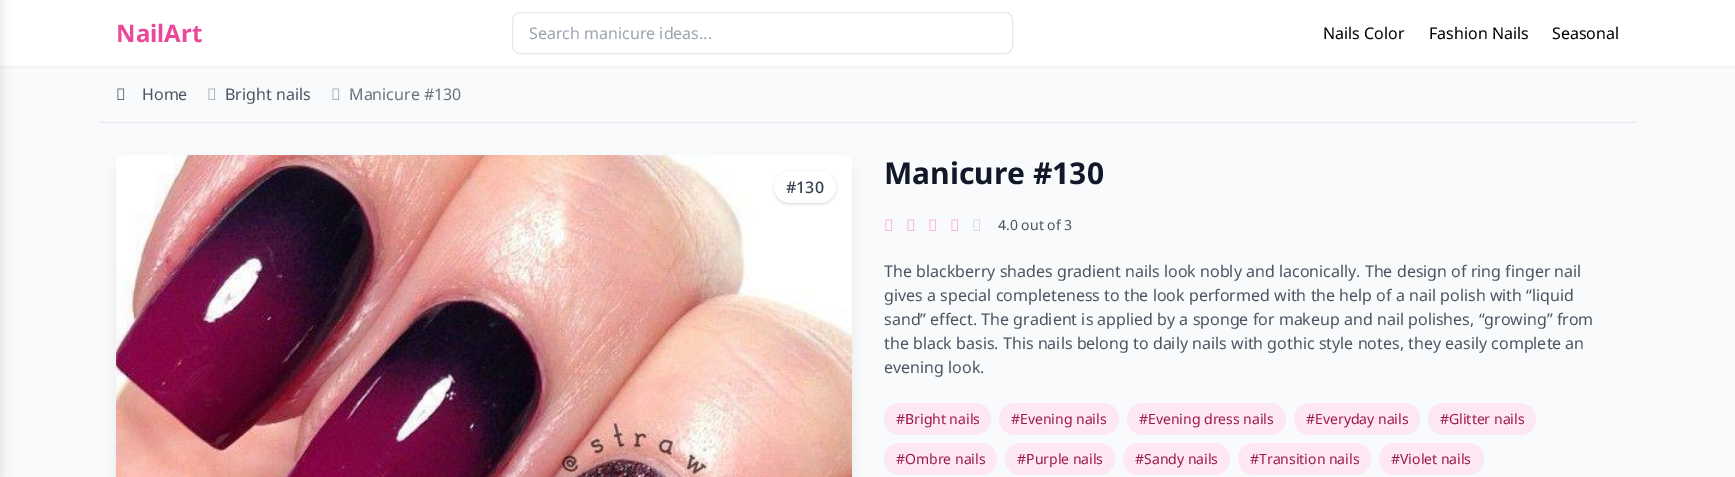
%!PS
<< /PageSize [1735 477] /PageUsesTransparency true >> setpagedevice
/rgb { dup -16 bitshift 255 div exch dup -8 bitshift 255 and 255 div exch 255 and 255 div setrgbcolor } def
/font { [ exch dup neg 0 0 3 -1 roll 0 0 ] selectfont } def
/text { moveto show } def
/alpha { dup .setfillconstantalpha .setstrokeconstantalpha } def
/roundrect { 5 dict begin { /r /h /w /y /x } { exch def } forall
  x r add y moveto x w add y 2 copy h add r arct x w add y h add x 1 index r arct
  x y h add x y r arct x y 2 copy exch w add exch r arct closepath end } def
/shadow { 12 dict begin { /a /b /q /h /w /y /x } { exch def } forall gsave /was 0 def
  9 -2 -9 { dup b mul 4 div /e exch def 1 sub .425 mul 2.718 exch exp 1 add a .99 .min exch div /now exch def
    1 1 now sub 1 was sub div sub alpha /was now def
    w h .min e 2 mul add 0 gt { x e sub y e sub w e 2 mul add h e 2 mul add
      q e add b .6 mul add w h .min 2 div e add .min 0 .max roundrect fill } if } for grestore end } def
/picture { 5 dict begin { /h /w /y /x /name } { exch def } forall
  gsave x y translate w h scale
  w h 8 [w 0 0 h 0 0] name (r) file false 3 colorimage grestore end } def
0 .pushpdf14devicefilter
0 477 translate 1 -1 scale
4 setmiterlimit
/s1 { /NotoSans-Bold 24 font 16#EC4899 rgb } def
/s2 { /NotoSans-Regular 16 font 16#9CA3AF rgb } def
/s3 { /NotoSans-Regular 16 font 16#000000 rgb } def
/s4 { /NotoSans-Regular 16 font 16#4B5563 rgb } def
/s5 { /NotoSans-Regular 16 font 16#6B7280 rgb } def
/s6 { /NotoSans-Medium 16 font 16#374151 rgb } def
/s7 { /NotoSans-Bold 30 font 16#111827 rgb } def
/s8 { /NotoSans-Regular 14 font 16#4B5563 rgb } def
/s9 { /NotoSans-Regular 14 font 16#9D174D rgb } def
16#F9FAFB rgb
0 0 1735 477 rectfill
16#000000 rgb
0 1 1735 66 0 1 0.05 shadow
16#FFFFFF rgb
0 0 1735 66 rectfill
16#000000 rgb
-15 0 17 477 0 5 0.1 shadow
s1
(NailArt) 116 42 text
16#E5E7EB rgb
512.5 12.5 500 41 7.5 roundrect stroke
s2
(Search manicure ideas...) 529 39 text
s3
(Nails Color) 1323 39 text
(Fashion Nails) 1429 39 text
(Seasonal) 1552 39 text
(pic1.raw) 117 88 8 12 picture
s4
(Home) 142 100 text
(pic2.raw) 208 88 8 12 picture
(Bright nails) 225 100 text
(pic2.raw) 332 88 8 12 picture
s5
(Manicure #130) 349 100 text
16#E5E7EB rgb
100 122 1536 1 rectfill
16#000000 rgb
119 168 730 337 5 7.5 0.1 shadow
(pic3.raw) 116 155 736 322 picture
774 172 62 32 16 1 0.06 shadow
774 172 62 32 16 1.5 0.1 shadow
16#FFFFFF rgb
774 171 62 32 16 roundrect fill
s6
(#130) 786 193 text
s7
(Manicure #130) 884 184 text
(pic4.raw) 885 219 8 12 picture
(pic4.raw) 907 219 8 12 picture
(pic4.raw) 929 219 8 12 picture
(pic4.raw) 951 219 8 12 picture
(pic5.raw) 973 219 7 12 picture
s8
(4.0 out of 3) 998 230 text
s4
(The blackberry shades gradient nails look nobly and laconically. The design of ring finger nail) 884 277 text
(gives a special completeness to the look performed with the help of a nail polish with “liquid) 884 301 text
(sand” effect. The gradient is applied by a sponge for makeup and nail polishes, “growing” from) 884 325 text
(the black basis. This nails belong to daily nails with gothic style notes, they easily complete an) 884 349 text
(evening look.) 884 373 text
16#FCE7F3 rgb
884 403 107 32 16 roundrect fill
s9
(#Bright nails) 896 424 text
16#FCE7F3 rgb
999 403 120 32 16 roundrect fill
s9
(#Evening nails) 1011 424 text
16#FCE7F3 rgb
1127 403 159 32 16 roundrect fill
s9
(#Evening dress nails) 1139 424 text
16#FCE7F3 rgb
1294 403 126 32 16 roundrect fill
s9
(#Everyday nails) 1306 424 text
16#FCE7F3 rgb
1428 403 108 32 16 roundrect fill
s9
(#Glitter nails) 1440 424 text
16#FCE7F3 rgb
884 443 113 32 16 roundrect fill
s9
(#Ombre nails) 896 464 text
16#FCE7F3 rgb
1005 443 110 32 16 roundrect fill
s9
(#Purple nails) 1017 464 text
16#FCE7F3 rgb
1123 443 107 32 16 roundrect fill
s9
(#Sandy nails) 1135 464 text
16#FCE7F3 rgb
1238 443 133 32 16 roundrect fill
s9
(#Transition nails) 1250 464 text
16#FCE7F3 rgb
1379 443 105 32 16 roundrect fill
s9
(#Violet nails) 1391 464 text
.poppdf14devicefilter showpage
